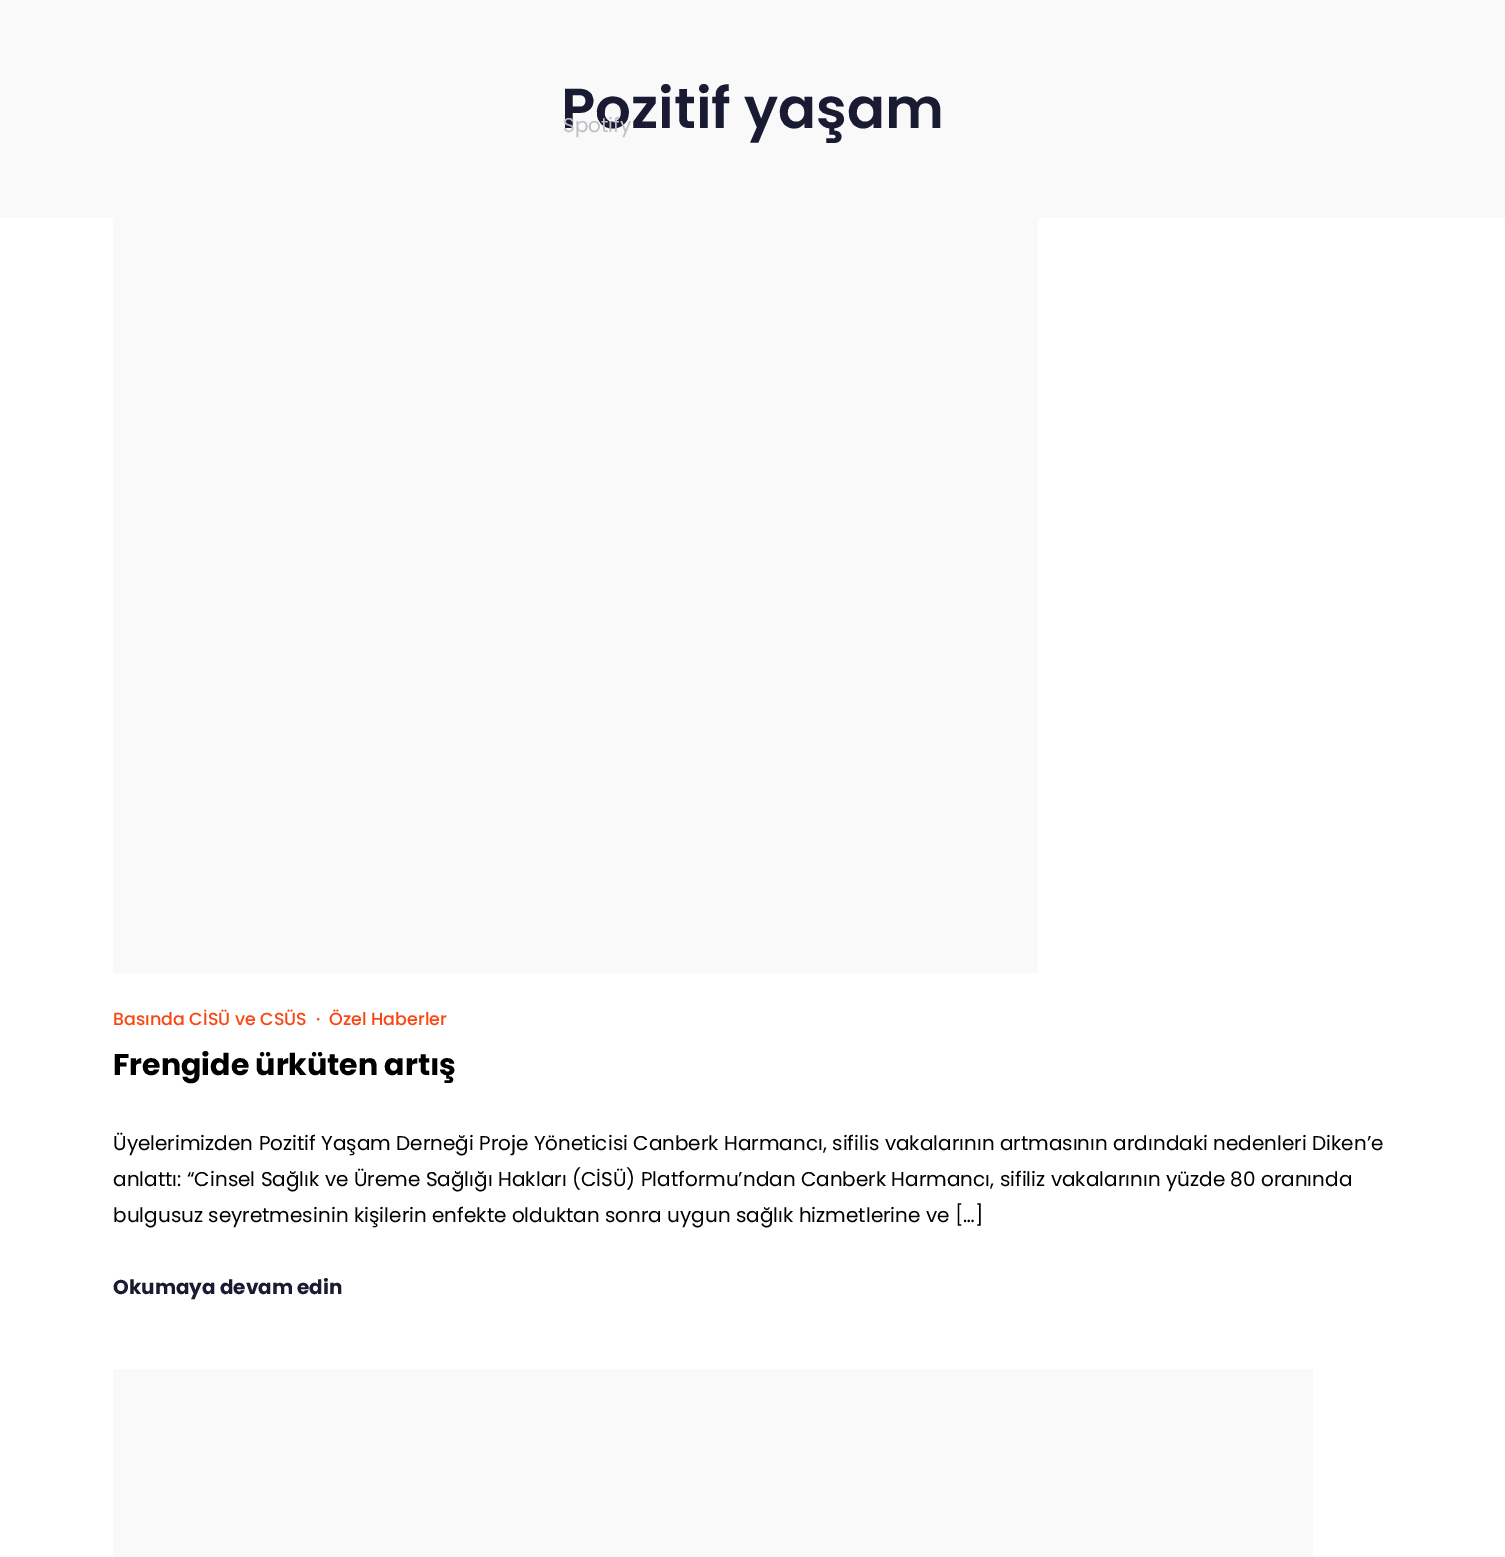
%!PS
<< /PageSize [1505 1557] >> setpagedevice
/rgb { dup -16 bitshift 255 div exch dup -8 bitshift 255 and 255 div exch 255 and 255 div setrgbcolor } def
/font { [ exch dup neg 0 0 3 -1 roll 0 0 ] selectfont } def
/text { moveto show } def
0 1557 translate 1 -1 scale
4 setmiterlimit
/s1 { /Poppins-SemiBold 56.25 font 16#181B31 rgb } def
/s2 { /Poppins-Regular 20 font 16#BDBEC4 rgb } def
/s3 { /Poppins-Medium 17.5 font 16#FA4612 rgb } def
/s4 { /Poppins-Bold 30 font 16#000000 rgb } def
/s5 { /Poppins-Regular 20 font 16#000000 rgb } def
/s6 { /Poppins-Bold 20 font 16#181B31 rgb } def
16#FFFFFF rgb
0 0 1505 1557 rectfill
16#F9F9F9 rgb
0 0 1505 218 rectfill
s1
(Pozitif yaşam) 561 128 text
s2
(Spotify) 563 132 text
16#F9F9F9 rgb
113 218 925 755 rectfill
s3
(Basında CİSÜ ve CSÜS) 113 1025 text
(·) 316 1025 text
(Özel Haberler) 329 1025 text
s4
(Frengide ürküten artış) 113 1075 text
s5
(Üyelerimizden Pozitif Yaşam Derneği Proje Yöneticisi Canberk Harmancı, sifilis vakalarının artmasının ardındaki nedenleri Diken’e) 113 1150 text
(anlattı: “Cinsel Sağlık ve Üreme Sağlığı Hakları \(CİSÜ\) Platformu’ndan Canberk Harmancı, sifiliz vakalarının yüzde 80 oranında) 113 1186 text
(bulgusuz seyretmesinin kişilerin enfekte olduktan sonra uygun sağlık hizmetlerine ve […]) 113 1222 text
s6
(Okumaya devam edin) 113 1294 text
16#F9F9F9 rgb
113 1369 1200 188 rectfill
showpage
